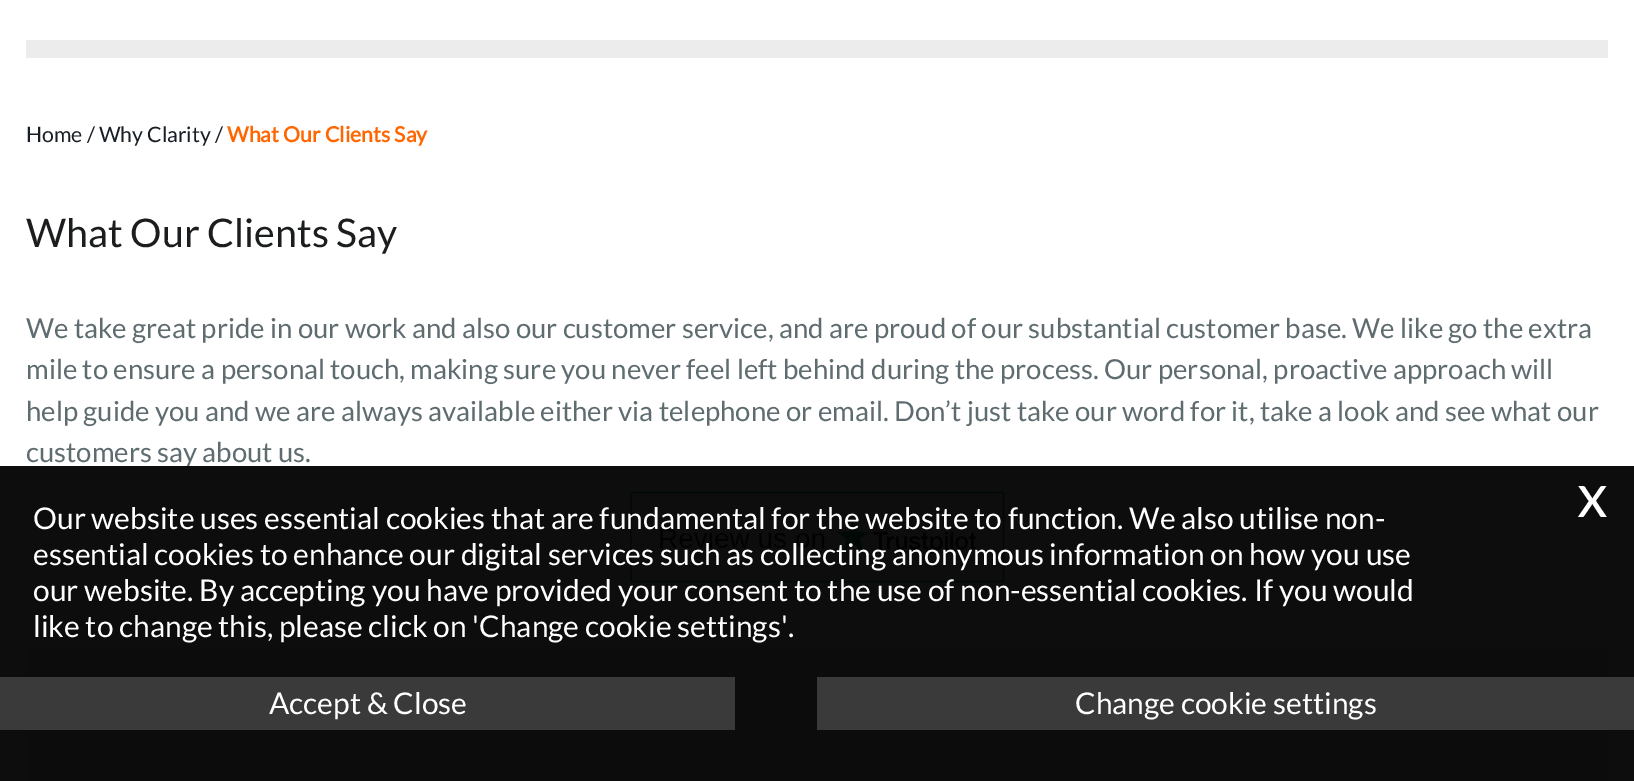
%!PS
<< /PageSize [1634 781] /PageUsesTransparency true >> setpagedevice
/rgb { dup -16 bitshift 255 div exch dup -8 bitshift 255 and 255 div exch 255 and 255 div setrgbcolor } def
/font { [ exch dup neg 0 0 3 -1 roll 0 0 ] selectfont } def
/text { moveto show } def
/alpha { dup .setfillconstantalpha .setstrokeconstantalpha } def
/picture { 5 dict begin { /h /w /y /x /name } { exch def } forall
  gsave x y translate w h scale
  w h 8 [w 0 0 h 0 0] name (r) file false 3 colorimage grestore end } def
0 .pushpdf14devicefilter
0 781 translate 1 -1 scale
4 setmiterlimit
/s1 { /Lato-Regular 21.25 font 16#181E25 rgb } def
/s2 { /Lato-Bold 21.25 font 16#FF6600 rgb } def
/s3 { /Lato-Regular 39.4 font 16#1B1D1E rgb } def
/s4 { /Lato-Regular 27.55 font 16#5E6C70 rgb } def
/s5 { /Lato-Regular 61 font 16#FFFFFF rgb } def
/s6 { /Lato-Regular 29.95 font 16#FFFFFF rgb } def
16#FFFFFF rgb
0 0 1634 781 rectfill
16#ECECEC rgb
26 40 1582 18 rectfill
s1
(Home / Why Clarity /) 26 142 text
s2
(What Our Clients Say) 227 142 text
s3
(What Our Clients Say) 26 247 text
s4
(We take great pride in our work and also our customer service, and are proud of our substantial customer base. We like go the extra) 26 338 text
(mile to ensure a personal touch, making sure you never feel left behind during the process. Our personal, proactive approach will) 26 379 text
(help guide you and we are always available either via telephone or email. Don’t just take our word for it, take a look and see what our) 26 421 text
(customers say about us.) 26 462 text
(pic1.raw) 630 491 375 92 picture
16#ECECEC rgb
26 646 1582 135 rectfill
0.95 alpha
16#000000 rgb
0 466 1634 315 rectfill
1 alpha
s5
(x) 1577 517 text
s6
(Our website uses essential cookies that are fundamental for the website to function. We also utilise non-) 33 529 text
(essential cookies to enhance our digital services such as collecting anonymous information on how you use) 33 565 text
(our website. By accepting you have provided your consent to the use of non-essential cookies. If you would) 33 601 text
(like to change this, please click on 'Change cookie settings'.) 33 637 text
16#3A3A3A rgb
0 677 735 53 rectfill
s6
(Accept & Close) 269 714 text
16#3A3A3A rgb
817 677 817 53 rectfill
s6
(Change cookie settings) 1075 714 text
.poppdf14devicefilter showpage
